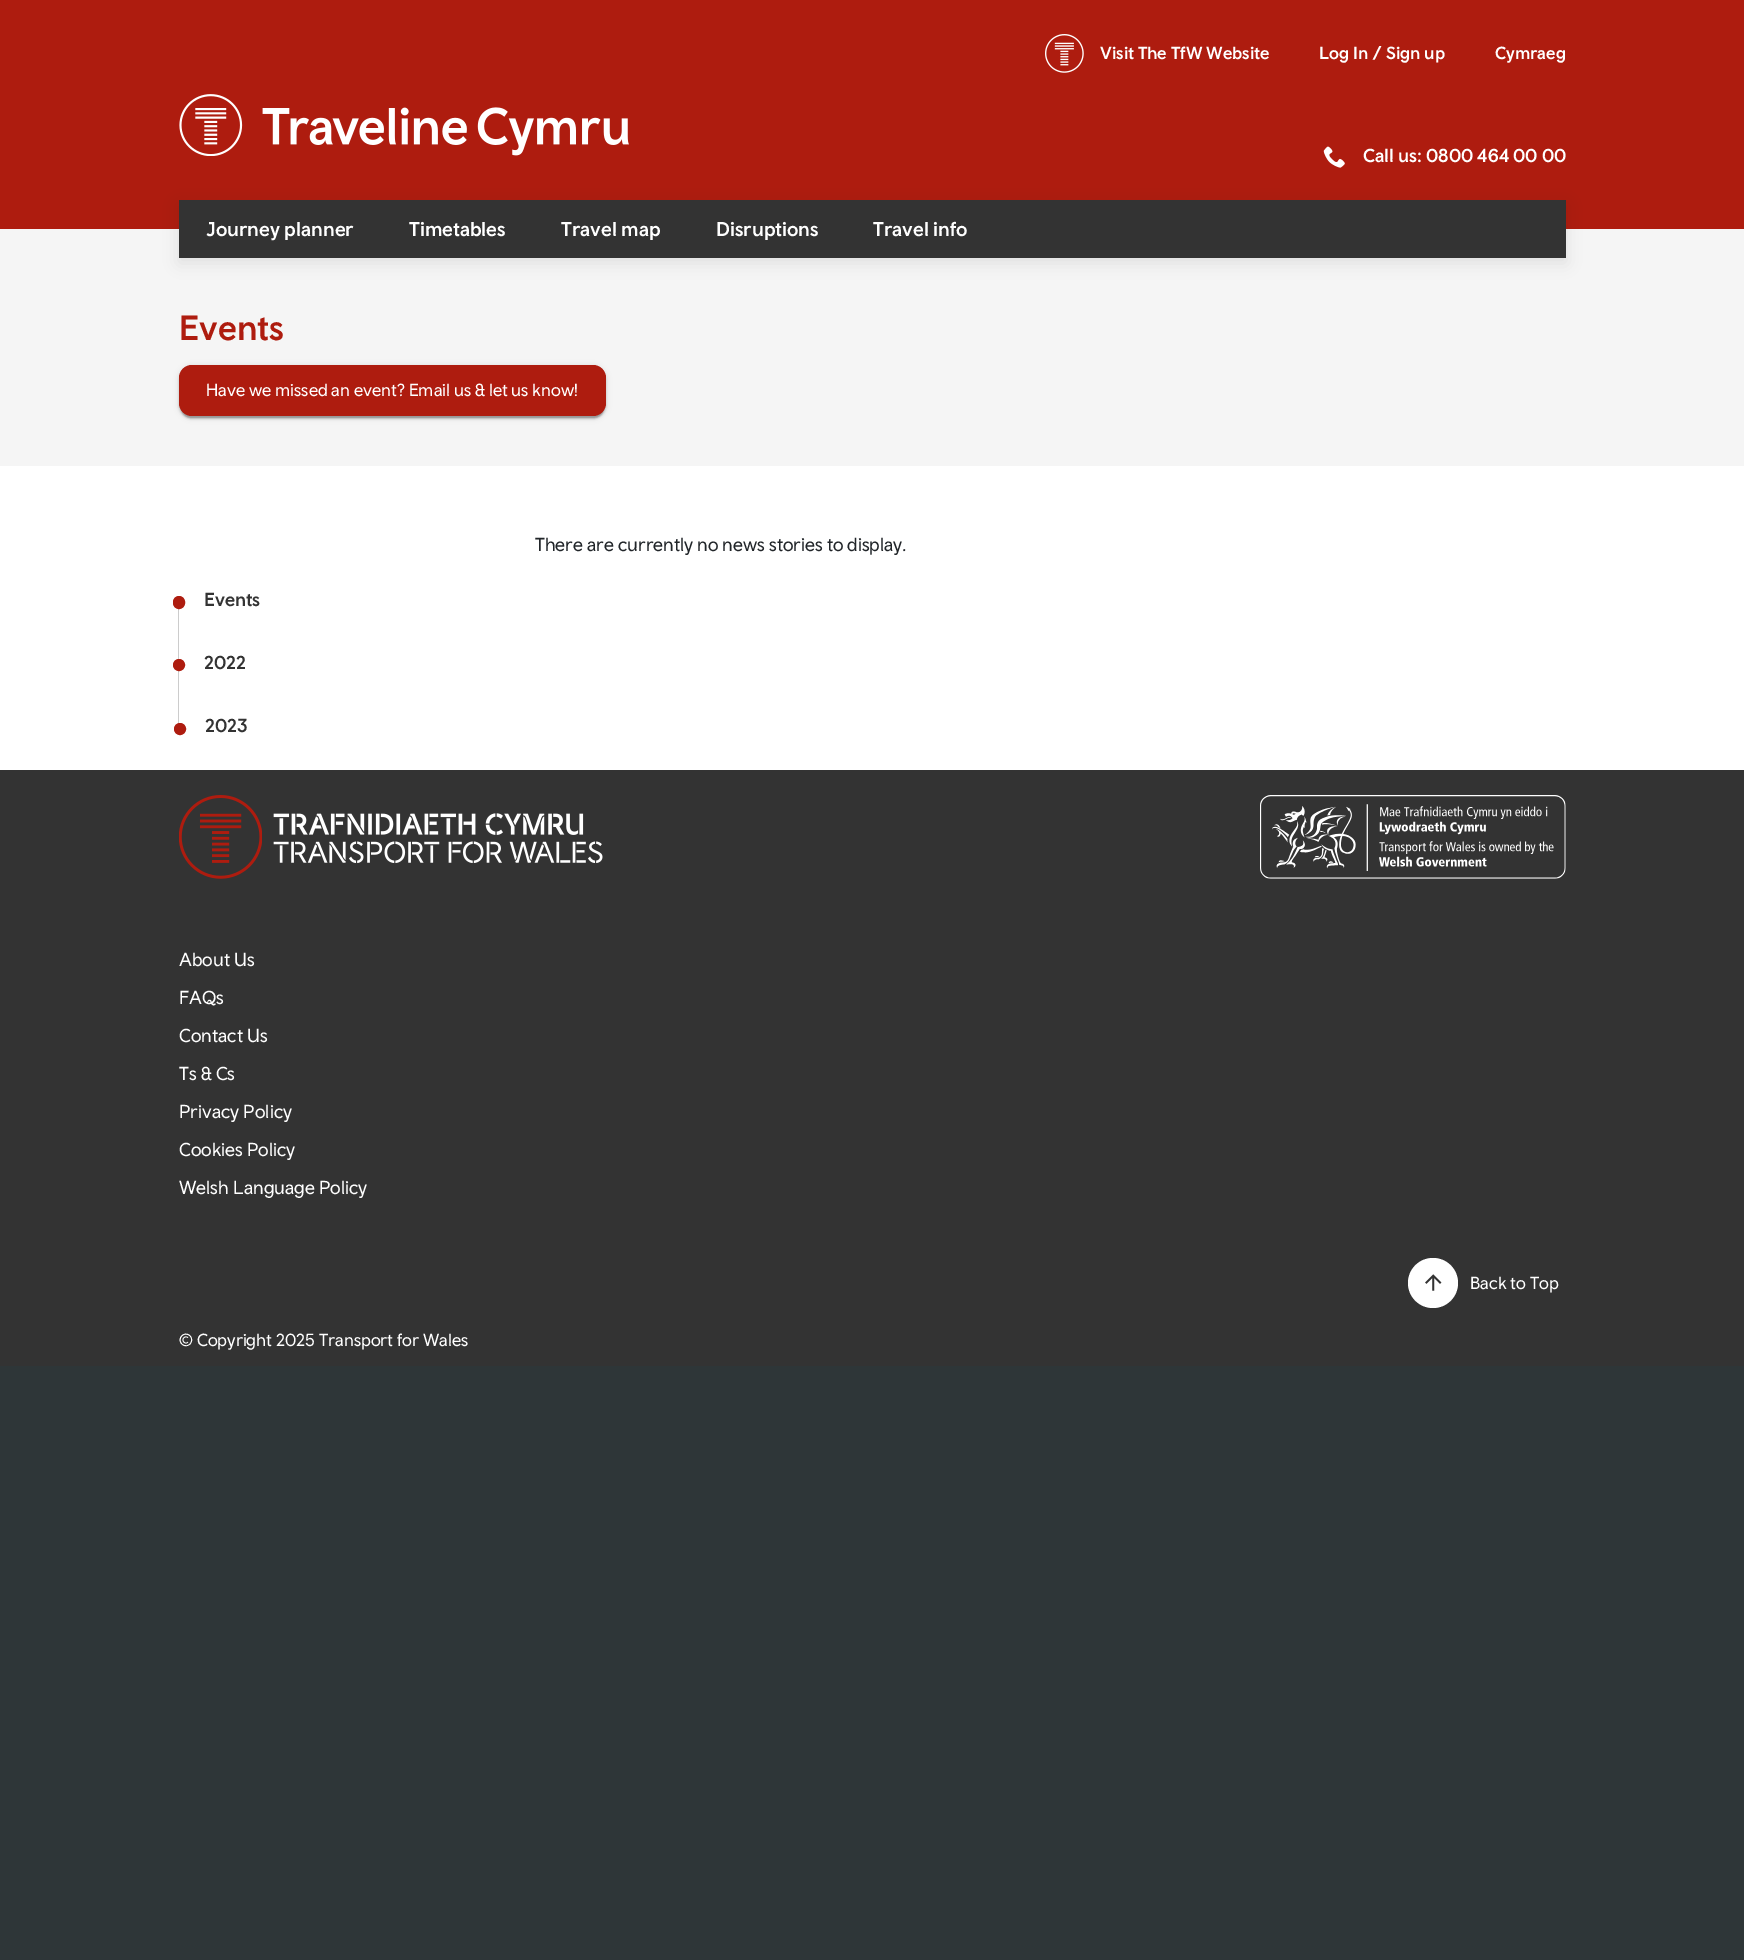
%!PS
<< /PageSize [1744 1960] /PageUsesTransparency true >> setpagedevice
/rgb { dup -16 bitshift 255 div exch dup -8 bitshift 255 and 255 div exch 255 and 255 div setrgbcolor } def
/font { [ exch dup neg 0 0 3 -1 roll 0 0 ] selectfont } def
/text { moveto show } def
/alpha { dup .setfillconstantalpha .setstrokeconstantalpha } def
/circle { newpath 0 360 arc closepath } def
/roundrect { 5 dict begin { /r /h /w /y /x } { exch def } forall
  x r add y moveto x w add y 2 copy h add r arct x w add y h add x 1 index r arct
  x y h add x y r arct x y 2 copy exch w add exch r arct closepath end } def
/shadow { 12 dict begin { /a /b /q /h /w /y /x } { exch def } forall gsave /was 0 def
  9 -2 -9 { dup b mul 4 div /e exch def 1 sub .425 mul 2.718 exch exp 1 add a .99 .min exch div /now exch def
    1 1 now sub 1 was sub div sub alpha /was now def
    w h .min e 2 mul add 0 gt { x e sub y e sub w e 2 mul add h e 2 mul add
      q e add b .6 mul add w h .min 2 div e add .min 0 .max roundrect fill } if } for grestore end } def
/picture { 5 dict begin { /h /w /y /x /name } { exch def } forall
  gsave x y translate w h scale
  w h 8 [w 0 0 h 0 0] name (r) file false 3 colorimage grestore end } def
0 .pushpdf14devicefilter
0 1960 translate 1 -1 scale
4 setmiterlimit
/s1 { /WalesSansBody-Medium 17.5 font 16#FFFFFF rgb } def
/s2 { /WalesSansBody-Medium 18.75 font 16#FFFFFF rgb } def
/s3 { /WalesSansBody-Medium 20 font 16#FFFFFF rgb } def
/s4 { /WalesSansBody-Medium 35 font 16#AE1C0F rgb } def
/s5 { /WalesSansBody-Regular 17.5 font 16#FFFFFF rgb } def
/s6 { /WalesSansBody-Regular 18.75 font 16#212529 rgb } def
/s7 { /WalesSansBody-Medium 18.75 font 16#333333 rgb } def
/s8 { /WalesSansBody-Regular 18.75 font 16#FFFFFF rgb } def
16#2E3638 rgb
0 0 1744 1960 rectfill
16#FFFFFF rgb
0 466 1744 304 rectfill
16#AE1C0F rgb
0 0 1744 229 rectfill
(pic1.raw) 1045 34 39 39 picture
s1
(Visit The TfW Website) 1100 59 text
(Log In / Sign up) 1319 59 text
(Cymraeg) 1495 59 text
(pic2.raw) 179 94 450 62 picture
(pic3.raw) 1323 146 22 22 picture
s2
(Call us: 0800 464 00 00) 1363 162 text
16#F5F5F5 rgb
0 229 1744 237 rectfill
16#000000 rgb
179 205 1387 58 0 7.5 0.08 shadow
16#333333 rgb
179 200 1387 58 rectfill
s3
(Journey planner) 206 236 text
(Timetables) 409 236 text
(Travel map) 561 236 text
(Disruptions) 716 236 text
(Travel info) 873 236 text
s4
(Events) 179 340 text
16#000000 rgb
179 366 427 52 13 3 0.12 shadow
179 368 427 51 13 1 0.14 shadow
181 371 423 47 10 0.5 0.2 shadow
16#AE1C0F rgb
179 365 427 51 13 roundrect fill
s5
(Have we missed an event? Email us & let us know!) 206 396 text
s6
(There are currently no news stories to display.) 535 551 text
16#CCCCCC rgb
178 600 1 126 rectfill
16#AE1C0F rgb
174.5 597.5 9 10 4.5 roundrect gsave fill grestore
3 setlinewidth
stroke
s7
(Events) 204 606 text
16#AE1C0F rgb
179 665 4.5 circle gsave fill grestore
stroke
s7
(2022) 204 669 text
16#AE1C0F rgb
180 729 4.5 circle gsave fill grestore
stroke
s7
(2023) 205 732 text
0 770 1744 596 rectfill
(pic4.raw) 179 795 424 84 picture
(pic5.raw) 1260 795 306 84 picture
s8
(About Us) 179 966 text
(FAQs) 179 1004 text
(Contact Us) 179 1042 text
(Ts & Cs) 179 1080 text
(Privacy Policy) 179 1118 text
(Cookies Policy) 179 1156 text
(Welsh Language Policy) 179 1194 text
1433 1283 25 circle fill
(pic6.raw) 1425 1274 17 17 picture
s5
(Back to Top) 1470 1289 text
(© Copyright 2025 Transport for Wales) 179 1346 text
.poppdf14devicefilter showpage
